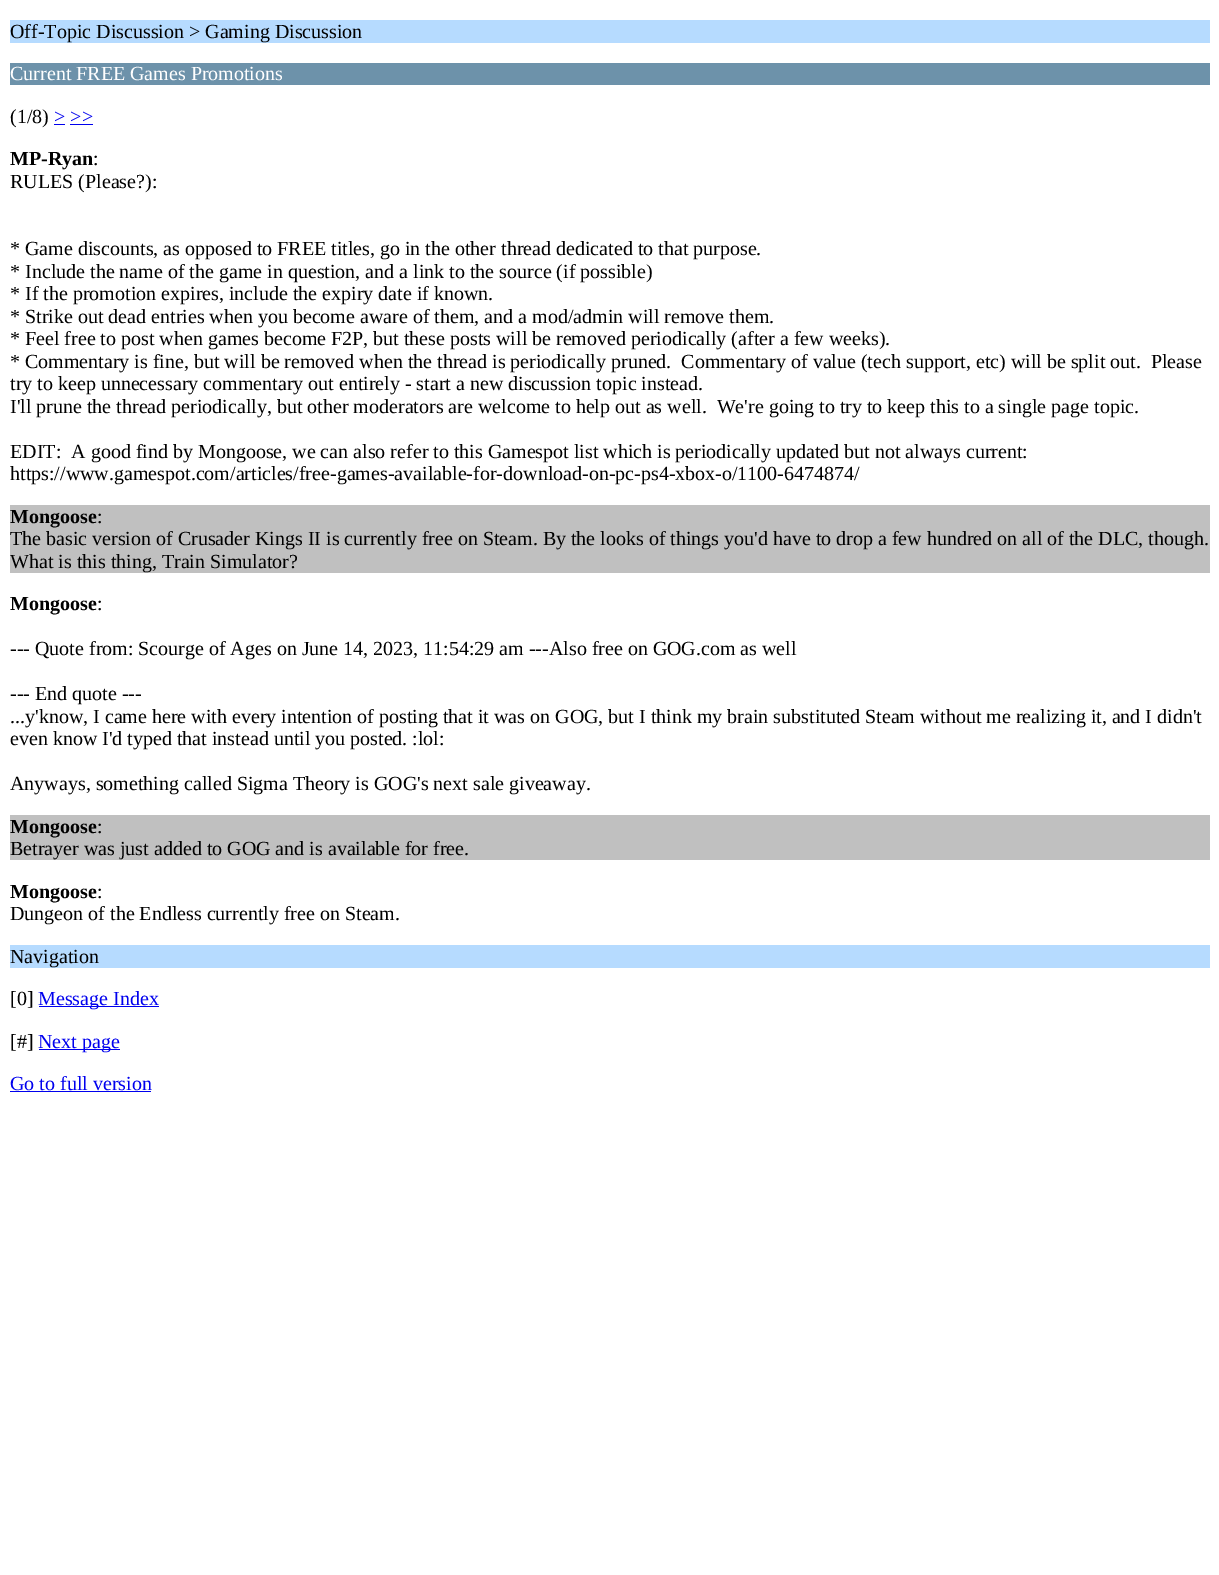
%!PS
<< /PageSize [1219 1575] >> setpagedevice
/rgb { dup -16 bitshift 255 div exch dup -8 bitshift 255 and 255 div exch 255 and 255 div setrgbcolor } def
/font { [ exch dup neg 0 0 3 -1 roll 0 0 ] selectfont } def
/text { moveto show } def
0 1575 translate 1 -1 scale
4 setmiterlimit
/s1 { /LiberationSerif-Regular 20 font 16#000000 rgb } def
/s2 { /LiberationSerif-Regular 20 font 16#FFFFFF rgb } def
/s3 { /LiberationSerif-Regular 20 font 16#0000EE rgb } def
/s4 { /LiberationSerif-Bold 20 font 16#000000 rgb } def
16#FFFFFF rgb
0 0 1219 1575 rectfill
16#B6DBFF rgb
10 20 1200 23 rectfill
s1
(Off-Topic Discussion > Gaming Discussion) 10 38 text
16#6D92AA rgb
10 63 1200 22 rectfill
s2
(Current FREE Games Promotions) 10 80 text
s1
(\(1/8\)) 10 123 text
s3
(> >>) 54 123 text
54 124 11 1 rectfill
70 124 23 1 rectfill
s4
(MP-Ryan) 10 165 text
s1
(:) 93 165 text
(RULES \(Please?\):) 10 188 text
(* Game discounts, as opposed to FREE titles, go in the other thread dedicated to that purpose.) 10 255 text
(* Include the name of the game in question, and a link to the source \(if possible\)) 10 278 text
(* If the promotion expires, include the expiry date if known.) 10 300 text
(* Strike out dead entries when you become aware of them, and a mod/admin will remove them.) 10 323 text
(* Feel free to post when games become F2P, but these posts will be removed periodically \(after a few weeks\).) 10 345 text
(* Commentary is fine, but will be removed when the thread is periodically pruned.  Commentary of value \(tech support, etc\) will be split out.  Please) 10 368 text
(try to keep unnecessary commentary out entirely - start a new discussion topic instead.) 10 390 text
(I'll prune the thread periodically, but other moderators are welcome to help out as well.  We're going to try to keep this to a single page topic.) 10 413 text
(EDIT:  A good find by Mongoose, we can also refer to this Gamespot list which is periodically updated but not always current:) 10 458 text
(https://www.gamespot.com/articles/free-games-available-for-download-on-pc-ps4-xbox-o/1100-6474874/) 10 480 text
16#C0C0C0 rgb
10 505 1200 68 rectfill
s4
(Mongoose) 10 523 text
s1
(:) 97 523 text
(The basic version of Crusader Kings II is currently free on Steam. By the looks of things you'd have to drop a few hundred on all of the DLC, though.) 10 545 text
(What is this thing, Train Simulator?) 10 568 text
s4
(Mongoose) 10 610 text
s1
(:) 97 610 text
(--- Quote from: Scourge of Ages on June 14, 2023, 11:54:29 am ---Also free on GOG.com as well) 10 655 text
(--- End quote ---) 10 700 text
(...y'know, I came here with every intention of posting that it was on GOG, but I think my brain substituted Steam without me realizing it, and I didn't) 10 723 text
(even know I'd typed that instead until you posted. :lol:) 10 745 text
(Anyways, something called Sigma Theory is GOG's next sale giveaway.) 10 790 text
16#C0C0C0 rgb
10 815 1200 45 rectfill
s4
(Mongoose) 10 833 text
s1
(:) 97 833 text
(Betrayer was just added to GOG and is available for free.) 10 855 text
s4
(Mongoose) 10 898 text
s1
(:) 97 898 text
(Dungeon of the Endless currently free on Steam.) 10 920 text
16#B6DBFF rgb
10 945 1200 23 rectfill
s1
(Navigation) 10 963 text
([0]) 10 1005 text
16#0000EE rgb
39 1006 120 1 rectfill
(Message Index) 38 1005 text
s1
([#]) 10 1048 text
16#0000EE rgb
39 1049 81 1 rectfill
(Next page) 38 1048 text
(Go to full version) 10 1090 text
10 1091 141 1 rectfill
showpage
